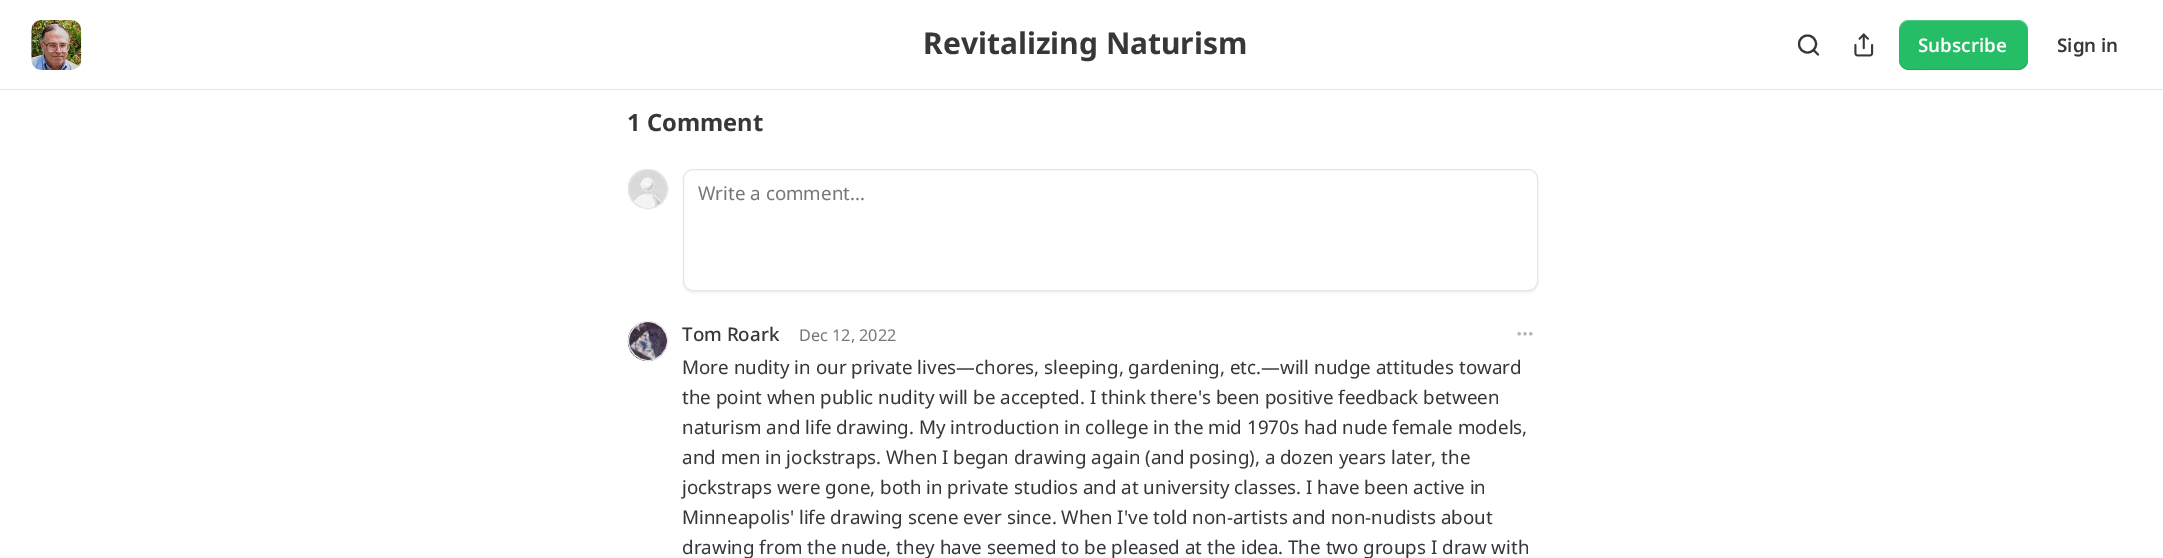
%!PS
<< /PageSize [2163 558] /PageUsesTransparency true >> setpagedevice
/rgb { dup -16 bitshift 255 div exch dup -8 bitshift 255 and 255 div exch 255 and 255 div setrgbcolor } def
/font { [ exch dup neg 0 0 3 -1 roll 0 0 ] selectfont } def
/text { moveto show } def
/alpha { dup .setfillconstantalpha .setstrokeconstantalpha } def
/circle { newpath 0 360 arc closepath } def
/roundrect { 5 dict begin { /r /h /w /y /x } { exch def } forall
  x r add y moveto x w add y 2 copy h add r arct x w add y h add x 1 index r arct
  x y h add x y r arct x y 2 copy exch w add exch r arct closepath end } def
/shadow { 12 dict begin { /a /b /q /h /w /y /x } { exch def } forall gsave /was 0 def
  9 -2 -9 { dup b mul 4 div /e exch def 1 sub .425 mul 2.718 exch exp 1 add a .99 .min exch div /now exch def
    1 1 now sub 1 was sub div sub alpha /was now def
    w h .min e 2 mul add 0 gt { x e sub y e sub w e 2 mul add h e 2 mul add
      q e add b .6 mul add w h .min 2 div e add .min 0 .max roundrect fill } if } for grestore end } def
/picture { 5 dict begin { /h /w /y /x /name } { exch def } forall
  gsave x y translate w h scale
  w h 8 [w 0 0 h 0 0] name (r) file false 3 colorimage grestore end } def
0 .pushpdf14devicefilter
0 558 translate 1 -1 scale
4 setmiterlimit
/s1 { /NotoSans-Bold 30 font 16#363737 rgb } def
/s2 { /NotoSans-SemiBold 18.75 font 16#FFFFFF rgb } def
/s3 { /NotoSans-SemiBold 18.75 font 16#363737 rgb } def
/s4 { /NotoSans-Bold 23.75 font 16#363737 rgb } def
/s5 { /NotoSans-Regular 18.75 font 16#777777 rgb } def
/s6 { /NotoSans-Medium 18.75 font 16#363737 rgb } def
/s7 { /NotoSans-Regular 16.25 font 16#777777 rgb } def
/s8 { /NotoSans-Regular 18.75 font 16#363737 rgb } def
16#FFFFFF rgb
0 0 2163 558 rectfill
16#E6E6E6 rgb
0 89 2163 1 rectfill
(pic1.raw) 31 20 51 50 picture
s1
(Revitalizing Naturism) 923 54 text
2.1 setlinewidth
1807.5 44 8.5 circle stroke
1 setlinecap
1 setlinejoin
1818 54.5 moveto 1813.5 50 lineto stroke
(pic2.raw) 1854 33 20 24 picture
16#25BD65 rgb
1899 20 129 50 10 roundrect fill
0.1 alpha
16#000000 rgb
1899 59 moveto 1899 74 1917 70 1927 70 curveto 2000 70 lineto 2010 70 2028 74 2028 59 curveto 2028 64 2023 69 2018 69 curveto 1909 69 lineto 1903 69 1899 64 1899 59 curveto closepath fill
0.2 alpha
16#FFFFFF rgb
1909 21 moveto 2018 21 lineto 2023 21 2028 26 2028 31 curveto 2028 16 2010 20 2000 20 curveto 1927 20 lineto 1917 20 1899 16 1899 31 curveto 1899 26 1903 21 1909 21 curveto closepath fill
1 alpha
s2
(Subscribe) 1918 52 text
s3
(Sign in) 2057 52 text
s4
(1 Comment) 627 131 text
16#E6E6E6 rgb
1 setlinewidth
0 setlinecap
0 setlinejoin
648 189 19.5 circle stroke
(pic3.raw) 627 169 40 39 picture
648 189 19.5 circle stroke
16#000000 rgb
683 170 855 123 10 1 0.05 shadow
16#FFFFFF rgb
683.5 169.5 854 121 9.5 roundrect gsave fill grestore
16#E6E6E6 rgb
stroke
s5
(Write a comment...) 698 200 text
16#E6E6E6 rgb
648 341 19.5 circle stroke
(pic4.raw) 627 321 41 40 picture
648 341 19.5 circle stroke
s6
(Tom Roark) 682 341 text
s7
(Dec 12, 2022) 799 341 text
16#B6B6B6 rgb
1.7 setlinewidth
1525 333.8 0.8 circle stroke
1530.8 333.8 0.8 circle stroke
1519.2 333.8 0.8 circle stroke
s8
(More nudity in our private lives—chores, sleeping, gardening, etc.—will nudge attitudes toward) 682 374 text
(the point when public nudity will be accepted. I think there's been positive feedback between) 682 404 text
(naturism and life drawing. My introduction in college in the mid 1970s had nude female models,) 682 434 text
(and men in jockstraps. When I began drawing again \(and posing\), a dozen years later, the) 682 464 text
(jockstraps were gone, both in private studios and at university classes. I have been active in) 682 494 text
(Minneapolis' life drawing scene ever since. When I've told non-artists and non-nudists about) 682 524 text
(drawing from the nude, they have seemed to be pleased at the idea. The two groups I draw with) 682 554 text
.poppdf14devicefilter showpage
